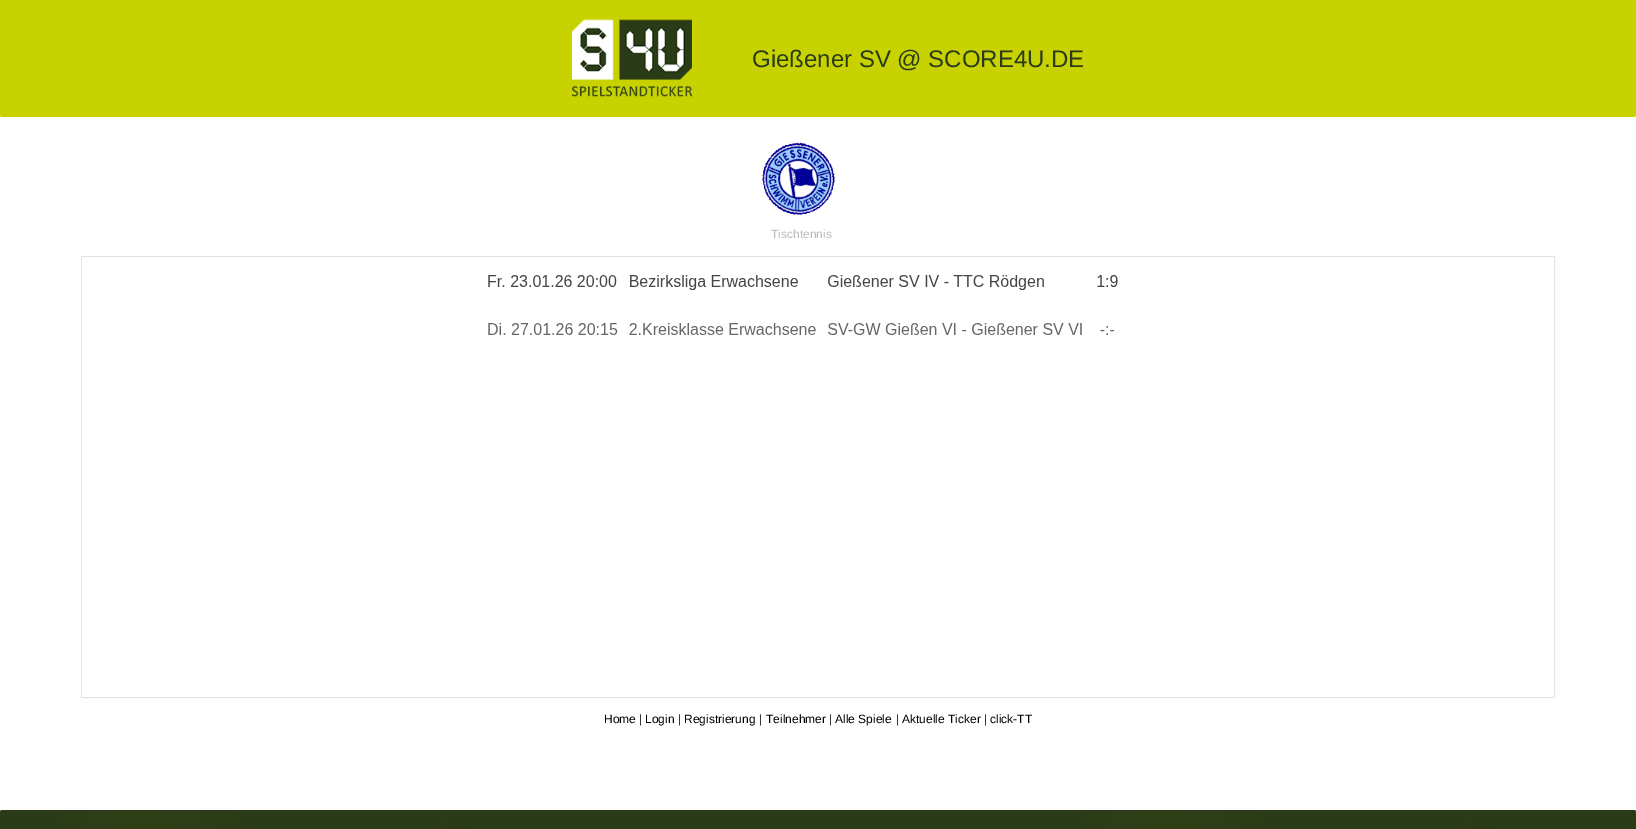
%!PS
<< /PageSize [1636 829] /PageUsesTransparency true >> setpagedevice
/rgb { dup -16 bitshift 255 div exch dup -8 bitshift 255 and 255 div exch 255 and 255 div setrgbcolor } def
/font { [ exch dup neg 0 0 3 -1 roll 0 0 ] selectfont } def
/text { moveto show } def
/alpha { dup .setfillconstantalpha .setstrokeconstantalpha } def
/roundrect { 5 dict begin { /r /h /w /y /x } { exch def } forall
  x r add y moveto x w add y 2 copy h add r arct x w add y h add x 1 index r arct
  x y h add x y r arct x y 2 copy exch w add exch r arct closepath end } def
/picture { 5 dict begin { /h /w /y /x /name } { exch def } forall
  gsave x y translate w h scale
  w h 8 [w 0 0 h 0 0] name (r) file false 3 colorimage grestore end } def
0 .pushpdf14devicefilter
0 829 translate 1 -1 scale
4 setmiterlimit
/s1 { /LiberationSans-Regular 24 font 16#2A3B17 rgb } def
/s2 { /LiberationSans-Regular 12 font 16#BBBBBB rgb } def
/s3 { /LiberationSans-Regular 12 font 16#000000 rgb } def
/s4 { /LiberationSans-Regular 12 font 16#37383C rgb } def
16#FFFFFF rgb
0 0 1636 829 rectfill
16#C8D200 rgb
0 -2 1636 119 2 roundrect fill
(pic1.raw) 572 19 120 78 picture
s1
(Gießener SV @ SCORE4U.DE) 752 67 text
(pic2.raw) 762 142 73 73 picture
s2
(Tischtennis) 771 238 text
16#EBEBEB rgb
81 256 1474 442 rectfill
16#DDDDDD rgb
[1 1] 0 setdash
81 256.5 moveto 1555 256.5 lineto stroke
0.06 alpha
16#000000 rgb
81.5 256 moveto 81.5 698 lineto stroke
1 alpha
(pic3.raw) 82 257 1472 440 picture
16#DDDDDD rgb
1554.5 256 moveto 1554.5 698 lineto stroke
81 697.5 moveto 1555 697.5 lineto stroke
s3
(Home) 604 723 text
s4
(|) 639 723 text
s3
(Login) 645 723 text
s4
(|) 678 723 text
s3
(Registrierung) 684 723 text
s4
(|) 759 723 text
s3
(Teilnehmer) 766 723 text
s4
(|) 829 723 text
s3
(Alle Spiele) 835 723 text
s4
(|) 896 723 text
s3
(Aktuelle Ticker) 902 723 text
s4
(|) 984 723 text
s3
(click-TT) 990 723 text
(pic4.raw) 0 810 1636 19 picture
.poppdf14devicefilter showpage
